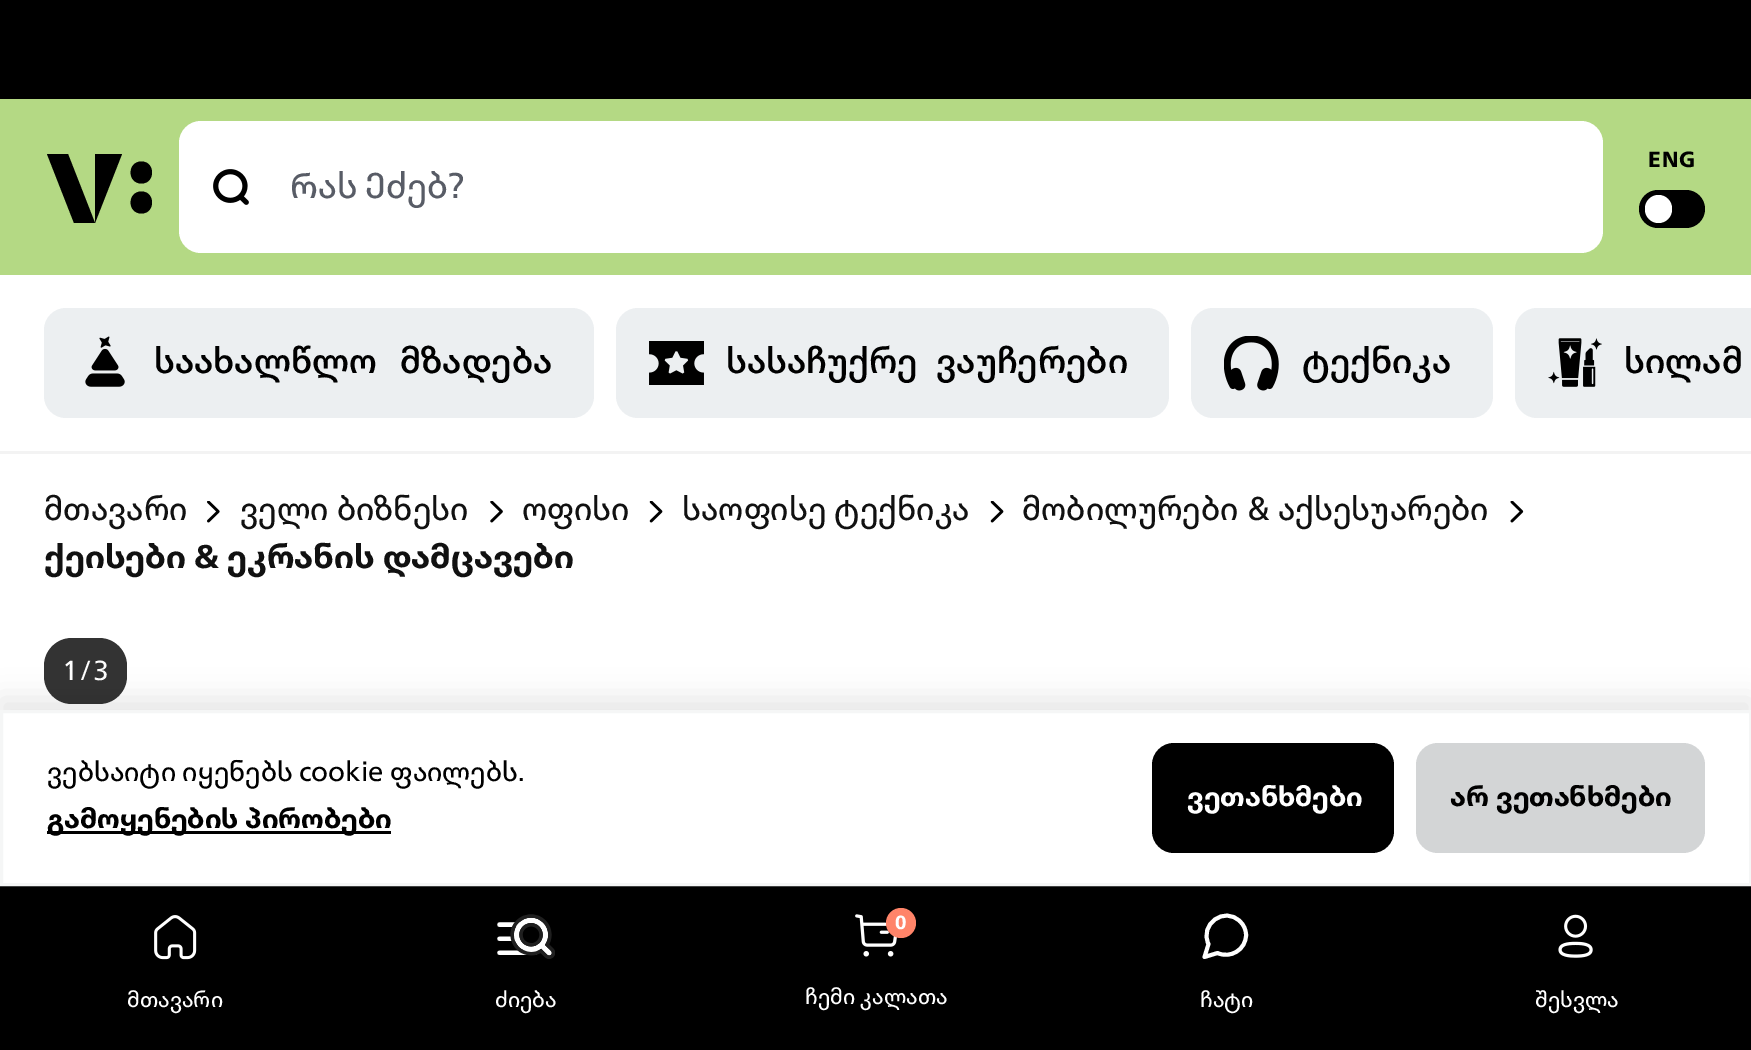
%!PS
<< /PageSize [1751 1050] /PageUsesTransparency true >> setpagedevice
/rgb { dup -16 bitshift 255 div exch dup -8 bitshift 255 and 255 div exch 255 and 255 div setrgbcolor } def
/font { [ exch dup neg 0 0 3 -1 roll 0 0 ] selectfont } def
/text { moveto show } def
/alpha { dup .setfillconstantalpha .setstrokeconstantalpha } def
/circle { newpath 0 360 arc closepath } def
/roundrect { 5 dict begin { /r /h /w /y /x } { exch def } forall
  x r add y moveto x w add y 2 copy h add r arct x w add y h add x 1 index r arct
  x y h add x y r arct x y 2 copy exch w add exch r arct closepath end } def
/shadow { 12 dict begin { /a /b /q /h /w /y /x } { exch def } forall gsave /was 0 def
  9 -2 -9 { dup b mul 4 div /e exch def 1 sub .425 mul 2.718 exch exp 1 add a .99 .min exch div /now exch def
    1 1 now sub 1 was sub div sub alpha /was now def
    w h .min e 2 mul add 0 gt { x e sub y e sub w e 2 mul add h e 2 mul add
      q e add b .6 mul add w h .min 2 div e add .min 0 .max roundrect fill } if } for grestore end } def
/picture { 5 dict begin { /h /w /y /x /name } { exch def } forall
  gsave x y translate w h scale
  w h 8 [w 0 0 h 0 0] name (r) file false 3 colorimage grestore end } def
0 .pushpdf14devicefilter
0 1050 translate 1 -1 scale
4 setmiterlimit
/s1 { /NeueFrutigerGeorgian-Medium 35.75 font 16#000000 rgb } def
/s2 { /NeueFrutigerGeorgian-Regular 33 font 16#111111 rgb } def
/s3 { /NeueFrutigerGeorgian-Black 33 font 16#111111 rgb } def
/s4 { /NeueFrutigerGeorgian-Regular 22 font 16#FFFFFF rgb } def
/s5 { /NeueFrutigerGeorgian-Black 19 font 16#FFFFFF rgb } def
/s6 { /NeueFrutigerGeorgian-Regular 27.5 font 16#000000 rgb } def
/s7 { /NeueFrutigerGeorgian-Black 27.5 font 16#000000 rgb } def
/s8 { /NeueFrutigerGeorgian-Black 27.5 font 16#FFFFFF rgb } def
16#FFFFFF rgb
0 0 1751 1050 rectfill
16#000000 rgb
0 0 1751 99 rectfill
16#B4D984 rgb
0 99 1751 176 rectfill
16#000000 rgb
95 223 moveto 95 154 lineto 122 154 lineto closepath fill
141.5 183.5 moveto 155.5 183.5 155.5 161.5 141.5 161.5 curveto 127 161.5 127 183.5 141.5 183.5 curveto closepath 141.5 213.5 moveto 155.5 213.5 155.5 191.5 141.5 191.5 curveto 127 191.5 127 213.5 141.5 213.5 curveto closepath fill
74 223 moveto 95 223 lineto 68 154 lineto 47 154 lineto closepath fill
16#FFFFFF rgb
179 121 1424 132 22 roundrect fill
(pic1.raw) 213 169 36 36 picture
/NeueFrutigerGeorgian-Regular 35.75 font
16#585C66 rgb
290 198 moveto -1 0 32 (Რას Ეძებ?) widthshow
/NeueFrutigerGeorgian-Black 22 font
16#000000 rgb
1648 167 moveto 1 0 (ENG) ashow
1639 190 66 38 19 roundrect fill
16#FFFFFF rgb
1645 195 27 28 13.5 roundrect fill
16#ECEFF1 rgb
44 308 550 110 22 roundrect fill
(pic2.raw) 85 336 40 51 picture
s1
(საახალწლო) 154 373 text
(მზადება) 400 373 text
16#ECEFF1 rgb
616 308 553 110 22 roundrect fill
(pic3.raw) 649 341 55 44 picture
s1
(სასაჩუქრე) 726 373 text
(ვაუჩერები) 936 373 text
16#ECEFF1 rgb
1191 308 302 110 22 roundrect fill
(pic4.raw) 1224 336 55 55 picture
s1
(ტექნიკა) 1302 373 text
16#ECEFF1 rgb
1537 308 moveto 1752 308 lineto 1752 418 lineto 1537 418 lineto 1525 418 1515 408 1515 396 curveto 1515 330 lineto 1515 318 1525 308 1537 308 curveto closepath fill
(pic5.raw) 1548 338 54 49 picture
s1
(სილამ) 1624 373 text
16#F3F3F3 rgb
0 451 1751 3 rectfill
s2
(მთავარი) 44 520 text
(pic6.raw) 207 501 13 22 picture
(ველი ბიზნესი) 240 520 text
(pic7.raw) 490 501 13 22 picture
(ოფისი) 522 520 text
(pic8.raw) 649 501 14 22 picture
(საოფისე ტექნიკა) 682 520 text
(pic8.raw) 990 501 14 22 picture
(მობილურები & აქსესუარები) 1022 520 text
(pic9.raw) 1510 501 14 22 picture
s3
(ქეისები & ეკრანის დამცავები) 44 568 text
16#333333 rgb
44 638 83 66 28 roundrect fill
/NeueFrutigerGeorgian-Regular 27.5 font
16#FFFFFF rgb
62 680 moveto -2.75 0 (1 / 3) ashow
(pic10.raw) 704 693 346 17 picture
16#000000 rgb
0 699 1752 176 0 14 0.1 shadow
0 886 1751 164 rectfill
(pic11.raw) 154 915 43 45 picture
s4
(მთავარი) 127 1007 text
(pic12.raw) 497 914 58 45 picture
(ძიება) 495 1007 text
(pic13.raw) 855 914 42 43 picture
16#FF8469 rgb
901 923 15 circle fill
s5
(0) 895 929 text
s4
(ჩემი კალათა) 805 1004 text
3.9 setlinewidth
1 setlinecap
1 setlinejoin
1246 935 moveto 1246 949.5 1230.5 959 1217.5 953 curveto 1204.5 957 lineto 1208.5 944 lineto 1199 924.5 1224.5 905.5 1240 921.5 curveto 1244 925 1246 930 1246 935 curveto closepath stroke
(ჩატი) 1200 1007 text
(pic14.raw) 1558 914 35 44 picture
(შესვლა) 1535 1007 text
1.5 711.5 moveto 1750.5 711.5 lineto 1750.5 884.5 lineto 1.5 884.5 lineto closepath gsave fill grestore
16#F5F6F6 rgb
3 setlinewidth
0 setlinecap
0 setlinejoin
stroke
s6
(ვებსაიტი იყენებს cookie ფაილებს.) 47 781 text
47 831 344 3 rectfill
s7
(გამოყენების პირობები) 47 828 text
1152 743 242 110 22 roundrect fill
s8
(ვეთანხმები) 1187 806 text
16#D3D5D6 rgb
1416 743 289 110 22 roundrect fill
s7
(არ ვეთანხმები) 1450 806 text
.poppdf14devicefilter showpage
